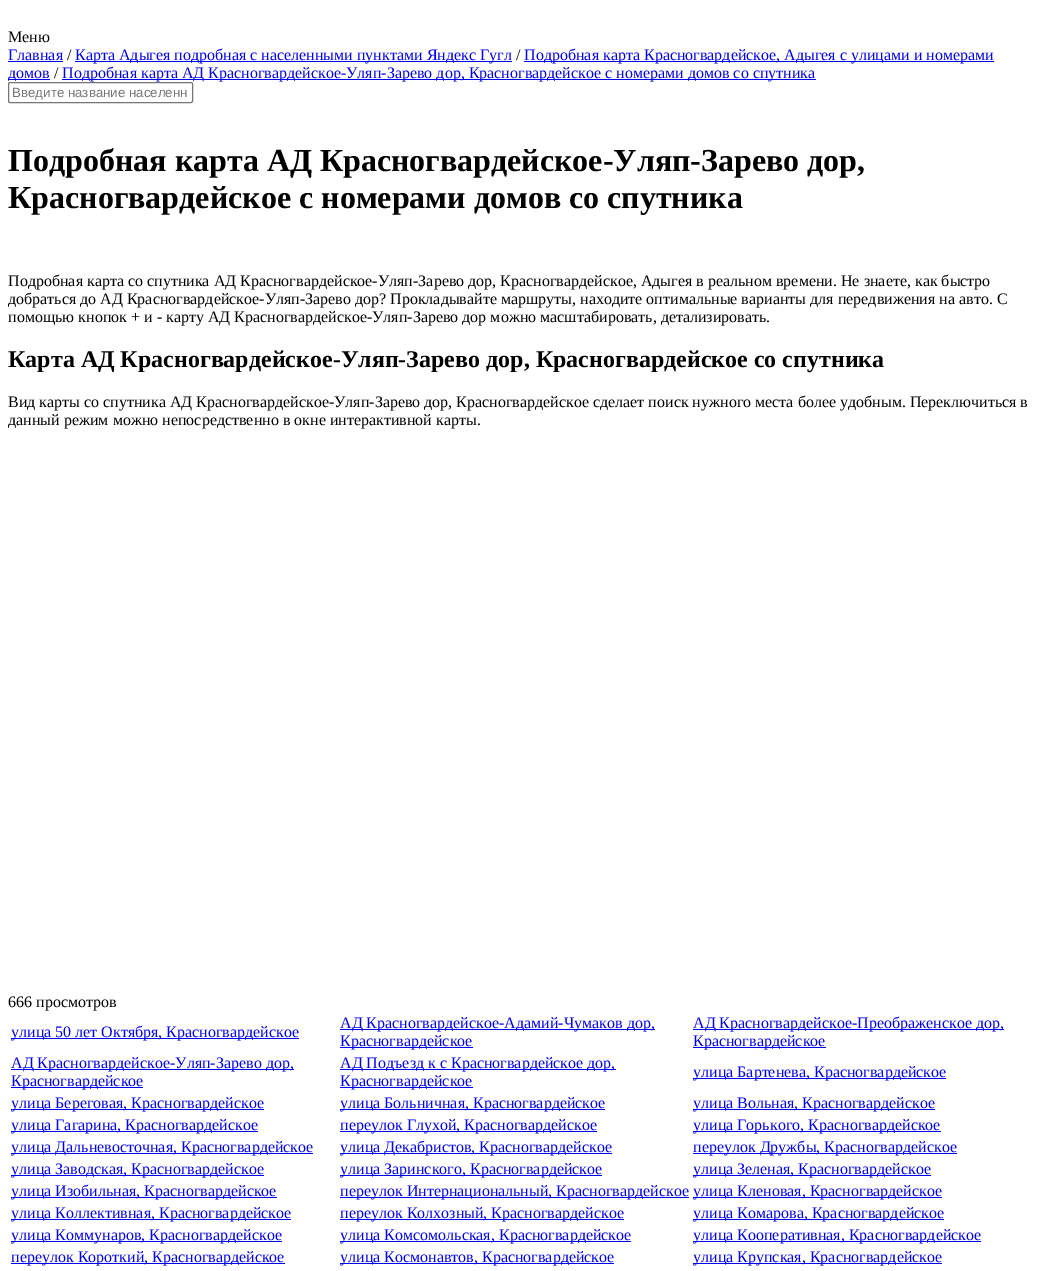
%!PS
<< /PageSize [1048 1271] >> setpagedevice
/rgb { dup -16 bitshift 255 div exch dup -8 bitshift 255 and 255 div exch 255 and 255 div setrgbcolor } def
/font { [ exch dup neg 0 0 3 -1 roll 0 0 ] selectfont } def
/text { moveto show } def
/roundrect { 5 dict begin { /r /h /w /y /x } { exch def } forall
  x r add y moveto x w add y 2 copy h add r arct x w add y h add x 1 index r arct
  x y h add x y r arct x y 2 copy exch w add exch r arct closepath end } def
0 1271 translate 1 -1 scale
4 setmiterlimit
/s1 { /LiberationSerif-Regular 16 font 16#000000 rgb } def
/s2 { /LiberationSerif-Regular 16 font 16#0000EE rgb } def
/s3 { /LiberationSans-Regular 13.3 font 16#757575 rgb } def
/s4 { /LiberationSerif-Bold 32 font 16#000000 rgb } def
/s5 { /LiberationSerif-Bold 24 font 16#000000 rgb } def
16#FFFFFF rgb
0 0 1048 1271 rectfill
s1
(Mеню) 8 42 text
s2
(Главная) 8 60 text
8 61 55 1 rectfill
s1
(/) 67 60 text
16#0000EE rgb
75 61 437 1 rectfill
(Карта Адыгея подробная с населенными пунктами Яндекс Гугл) 75 60 text
s1
(/) 516 60 text
16#0000EE rgb
524 61 470 1 rectfill
(Подробная карта Красногвардейское, Адыгея с улицами и номерами) 524 60 text
8 79 42 1 rectfill
(домов) 8 78 text
s1
(/) 54 78 text
16#0000EE rgb
62 79 754 1 rectfill
(Подробная карта АД Красногвардейское-Уляп-Зарево дор, Красногвардейское с номерами домов со спутника) 62 78 text
16#767676 rgb
8.5 82.5 184 20 1.5 roundrect stroke
s3
(Введите название населенн) 12 97 text
s4
(Подробная карта АД Красногвардейское-Уляп-Зарево дор,) 8 171 text
(Красногвардейское с номерами домов со спутника) 8 208 text
s1
(Подробная карта со спутника АД Красногвардейское-Уляп-Зарево дор, Красногвардейское, Адыгея в реальном времени. Не знаете, как быстро) 8 286 text
(добраться до АД Красногвардейское-Уляп-Зарево дор? Прокладывайте маршруты, находите оптимальные варианты для передвижения на авто. С) 8 304 text
(помощью кнопок + и - карту АД Красногвардейское-Уляп-Зарево дор можно масштабировать, детализировать.) 8 322 text
s5
(Карта АД Красногвардейское-Уляп-Зарево дор, Красногвардейское со спутника) 8 367 text
s1
(Вид карты со спутника АД Красногвардейское-Уляп-Зарево дор, Красногвардейское сделает поиск нужного места более удобным. Переключиться в) 8 407 text
(данный режим можно непосредственно в окне интерактивной карты.) 8 425 text
(666 просмотров) 8 1007 text
16#0000EE rgb
11 1038 288 1 rectfill
(улица 50 лет Октября, Красногвардейское) 11 1037 text
340 1029 315 1 rectfill
(АД Красногвардейское-Адамий-Чумаков дор,) 340 1028 text
340 1047 133 1 rectfill
(Красногвардейское) 340 1046 text
693 1029 311 1 rectfill
(АД Красногвардейское-Преображенское дор,) 693 1028 text
693 1047 133 1 rectfill
(Красногвардейское) 693 1046 text
11 1069 283 1 rectfill
(АД Красногвардейское-Уляп-Зарево дор,) 11 1068 text
11 1087 132 1 rectfill
(Красногвардейское) 11 1086 text
340 1069 276 1 rectfill
(АД Подъезд к с Красногвардейское дор,) 340 1068 text
340 1087 133 1 rectfill
(Красногвардейское) 340 1086 text
693 1078 253 1 rectfill
(улица Бартенева, Красногвардейское) 693 1077 text
11 1109 253 1 rectfill
(улица Береговая, Красногвардейское) 11 1108 text
340 1109 265 1 rectfill
(улица Больничная, Красногвардейское) 340 1108 text
693 1109 242 1 rectfill
(улица Вольная, Красногвардейское) 693 1108 text
11 1131 247 1 rectfill
(улица Гагарина, Красногвардейское) 11 1130 text
340 1131 257 1 rectfill
(переулок Глухой, Красногвардейское) 340 1130 text
693 1131 248 1 rectfill
(улица Горького, Красногвардейское) 693 1130 text
11 1153 302 1 rectfill
(улица Дальневосточная, Красногвардейское) 11 1152 text
340 1153 272 1 rectfill
(улица Декабристов, Красногвардейское) 340 1152 text
693 1153 264 1 rectfill
(переулок Дружбы, Красногвардейское) 693 1152 text
11 1175 253 1 rectfill
(улица Заводская, Красногвардейское) 11 1174 text
340 1175 262 1 rectfill
(улица Заринского, Красногвардейское) 340 1174 text
693 1175 238 1 rectfill
(улица Зеленая, Красногвардейское) 693 1174 text
11 1197 266 1 rectfill
(улица Изобильная, Красногвардейское) 11 1196 text
340 1197 349 1 rectfill
(переулок Интернациональный, Красногвардейское) 340 1196 text
693 1197 249 1 rectfill
(улица Кленовая, Красногвардейское) 693 1196 text
11 1219 280 1 rectfill
(улица Коллективная, Красногвардейское) 11 1218 text
340 1219 284 1 rectfill
(переулок Колхозный, Красногвардейское) 340 1218 text
693 1219 251 1 rectfill
(улица Комарова, Красногвардейское) 693 1218 text
11 1241 271 1 rectfill
(улица Коммунаров, Красногвардейское) 11 1240 text
340 1241 291 1 rectfill
(улица Комсомольская, Красногвардейское) 340 1240 text
693 1241 288 1 rectfill
(улица Кооперативная, Красногвардейское) 693 1240 text
11 1263 274 1 rectfill
(переулок Короткий, Красногвардейское) 11 1262 text
340 1263 274 1 rectfill
(улица Космонавтов, Красногвардейское) 340 1262 text
693 1263 249 1 rectfill
(улица Крупская, Красногвардейское) 693 1262 text
showpage
